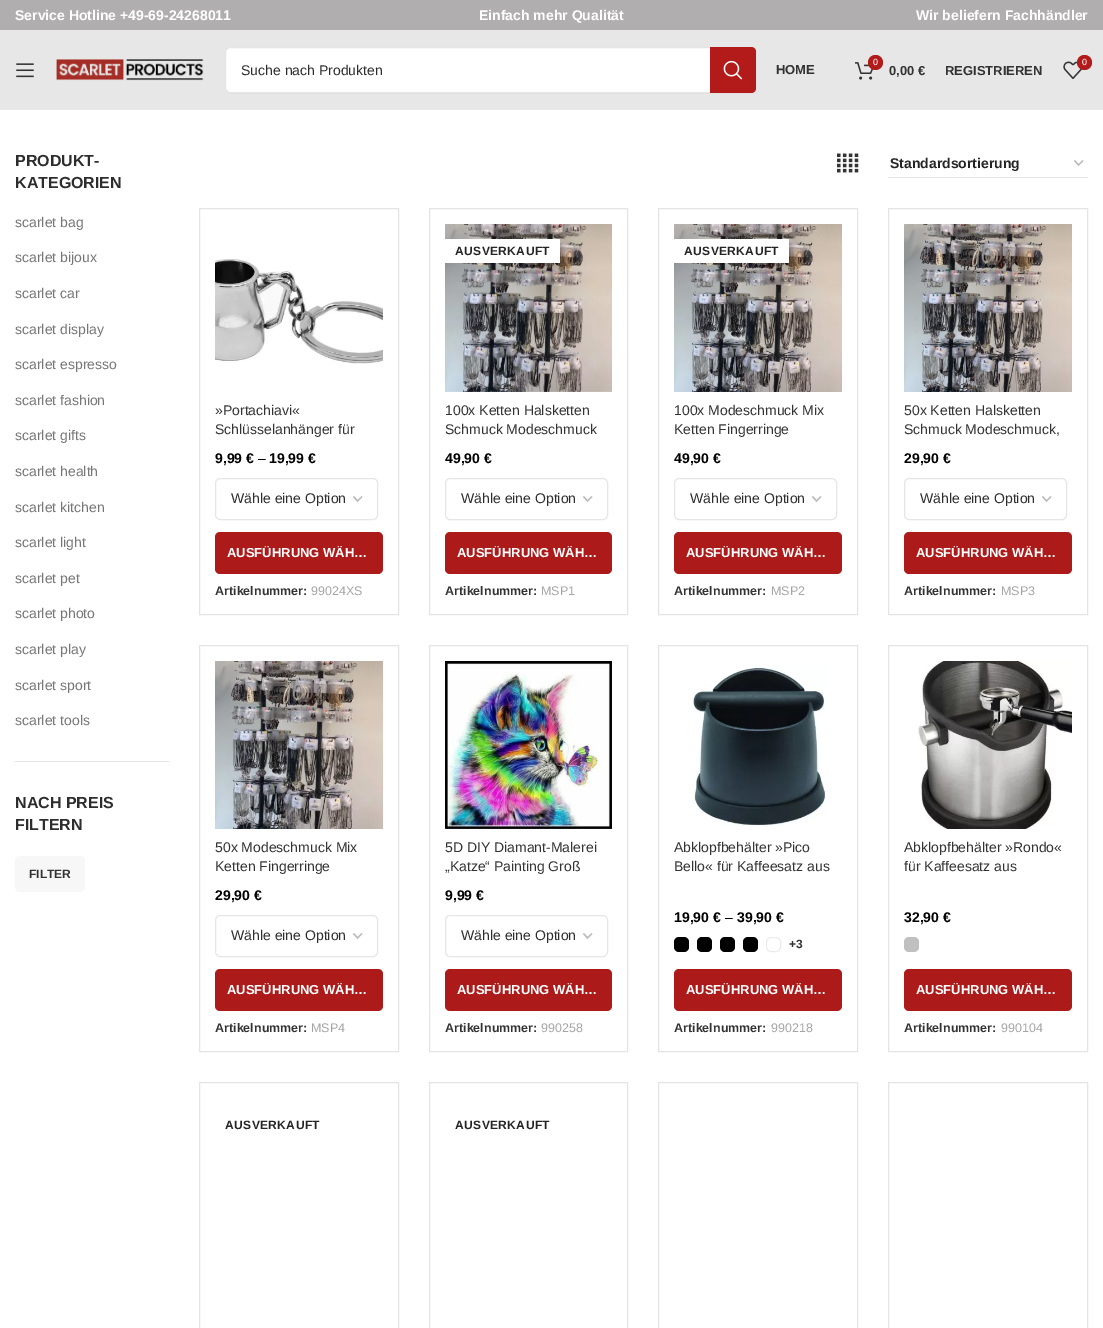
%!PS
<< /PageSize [1103 1328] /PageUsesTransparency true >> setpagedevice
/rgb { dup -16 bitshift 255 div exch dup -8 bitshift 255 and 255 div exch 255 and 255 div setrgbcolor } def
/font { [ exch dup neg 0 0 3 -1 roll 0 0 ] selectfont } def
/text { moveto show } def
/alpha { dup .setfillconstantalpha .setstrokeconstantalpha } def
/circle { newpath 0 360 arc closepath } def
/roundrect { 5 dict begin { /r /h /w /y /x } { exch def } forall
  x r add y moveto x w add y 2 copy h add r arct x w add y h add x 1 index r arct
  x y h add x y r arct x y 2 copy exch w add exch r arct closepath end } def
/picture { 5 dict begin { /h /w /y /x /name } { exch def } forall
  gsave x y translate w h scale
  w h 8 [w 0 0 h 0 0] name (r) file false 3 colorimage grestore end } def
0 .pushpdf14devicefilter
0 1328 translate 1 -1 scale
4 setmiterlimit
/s1 { /LiberationSans-Bold 14 font 16#FFFFFF rgb } def
/s2 { /LiberationSans-Regular 14 font 16#2D2D2D rgb } def
/s3 { /LiberationSans-Regular 9 font 16#FFFFFF rgb } def
/s4 { /LiberationSans-Bold 13 font 16#333333 rgb } def
/s5 { /LiberationSans-Bold 16 font 16#2D2D2D rgb } def
/s6 { /LiberationSans-Regular 14 font 16#767676 rgb } def
/s7 { /LiberationSans-Bold 12 font 16#333333 rgb } def
/s8 { /LiberationSans-Bold 14 font 16#242424 rgb } def
/s9 { /LiberationSans-Regular 14 font 16#333333 rgb } def
/s10 { /LiberationSans-Bold 14 font 16#000000 rgb } def
/s11 { /LiberationSans-Regular 14 font 16#000000 rgb } def
/s12 { /LiberationSans-Bold 13 font 16#FFFFFF rgb } def
/s13 { /LiberationSans-Bold 12.5 font 16#333333 rgb } def
/s14 { /LiberationSans-Regular 12.5 font 16#A5A5A5 rgb } def
16#FFFFFF rgb
0 0 1103 1328 rectfill
16#B0AEAE rgb
0 0 1103 30 rectfill
s1
(Service Hotline +49-69-24268011) 15 20 text
(Einfach mehr Qualität) 479 20 text
(Wir beliefern Fachhändler) 916 20 text
16#E7E7E7 rgb
0 30 1103 80 rectfill
(pic1.raw) 16 63 18 15 picture
(pic2.raw) 56 59 148 22 picture
16#FFFFFF rgb
225 47 531 46 5 roundrect fill
0.1 alpha
16#000000 rgb
225.5 47.5 530 45 4.5 roundrect stroke
1 alpha
s2
(Suche nach Produkten) 241 75 text
16#B31B1B rgb
710 47 moveto 751 47 lineto 754 47 756 49 756 52 curveto 756 88 lineto 756 91 754 93 751 93 curveto 710 93 lineto closepath fill
(pic3.raw) 723 60 20 20 picture
(pic4.raw) 855 62 19 18 picture
875.5 62.5 7.5 circle fill
s3
(0) 873 65 text
s4
(0,00 €) 889 75 text
(pic5.raw) 1063 61 20 18 picture
16#B31B1B rgb
1084.5 62.5 7.5 circle fill
s3
(0) 1082 65 text
s4
(HOME) 776 74 text
(REGISTRIEREN) 945 75 text
16#E4E4E4 rgb
15 761 154 1 rectfill
s5
(PRODUKT-) 15 166 text
(KATEGORIEN) 15 188 text
s6
(scarlet bag) 15 227 text
(scarlet bijoux) 15 262 text
(scarlet car) 15 298 text
(scarlet display) 15 334 text
(scarlet espresso) 15 369 text
(scarlet fashion) 15 405 text
(scarlet gifts) 15 440 text
(scarlet health) 15 476 text
(scarlet kitchen) 15 512 text
(scarlet light) 15 547 text
(scarlet pet) 15 583 text
(scarlet photo) 15 618 text
(scarlet play) 15 654 text
(scarlet sport) 15 690 text
(scarlet tools) 15 725 text
s5
(NACH PREIS) 15 808 text
(FILTERN) 15 830 text
16#F7F7F7 rgb
15 856 70 36 5 roundrect fill
s7
(FILTER) 29 878 text
(pic6.raw) 837 153 22 20 picture
16#BBBBBB rgb
1.4 setlinewidth
1074.5 160.5 moveto 1078.5 165 lineto 1083 160.5 lineto stroke
16#E6E6E6 rgb
888 177 200 1 rectfill
s8
(Standardsortierung) 890 168 text
16#E4E4E4 rgb
1 setlinewidth
199.5 208.5 199 406 rectstroke
(pic7.raw) 215 258 168 106 picture
s9
(»Portachiavi«) 215 415 text
(Schlüsselanhänger für) 215 434 text
s10
(9,99 €) 215 463 text
s11
(–) 258 463 text
s10
(19,99 €) 269 463 text
16#BBBBBB rgb
1.4 setlinewidth
353.5 496.5 moveto 357.5 501 lineto 362 496.5 lineto stroke
16#E6E6E6 rgb
1 setlinewidth
215.5 478.5 162 41 4.5 roundrect stroke
s2
(Wähle eine Option) 231 503 text
16#AD1A1A rgb
215 532 168 42 5 roundrect fill
s12
(AUSFÜHRUNG WÄH…) 227 557 text
s13
(Artikelnummer:) 215 595 text
s14
(99024XS) 311 595 text
16#E4E4E4 rgb
429.5 208.5 198 406 rectstroke
(pic8.raw) 445 224 167 168 picture
16#FFFFFF rgb
445 239 115 24 rectfill
/LiberationSans-Bold 12 font
16#242424 rgb
455 255 moveto 0.4 0 (AUSVERKAUFT) ashow
s9
(100x Ketten Halsketten) 445 415 text
(Schmuck Modeschmuck) 445 434 text
s10
(49,90 €) 445 463 text
16#BBBBBB rgb
1.4 setlinewidth
583.5 496.5 moveto 587.5 501 lineto 592 496.5 lineto stroke
16#E6E6E6 rgb
1 setlinewidth
445.5 478.5 162 41 4.5 roundrect stroke
s2
(Wähle eine Option) 461 503 text
16#AD1A1A rgb
445 532 167 42 5 roundrect fill
s12
(AUSFÜHRUNG WÄH…) 457 557 text
s13
(Artikelnummer:) 445 595 text
s14
(MSP1) 541 595 text
16#E4E4E4 rgb
658.5 208.5 199 406 rectstroke
(pic9.raw) 674 224 168 168 picture
16#FFFFFF rgb
674 239 115 24 rectfill
/LiberationSans-Bold 12 font
16#242424 rgb
684 255 moveto 0.4 0 (AUSVERKAUFT) ashow
s9
(100x Modeschmuck Mix) 674 415 text
(Ketten Fingerringe) 674 434 text
s10
(49,90 €) 674 463 text
16#BBBBBB rgb
1.4 setlinewidth
812.5 496.5 moveto 816.5 501 lineto 821 496.5 lineto stroke
16#E6E6E6 rgb
1 setlinewidth
674.5 478.5 162 41 4.5 roundrect stroke
s2
(Wähle eine Option) 690 503 text
16#AD1A1A rgb
674 532 168 42 5 roundrect fill
s12
(AUSFÜHRUNG WÄH…) 686 557 text
s13
(Artikelnummer:) 674 595 text
s14
(MSP2) 771 595 text
16#E4E4E4 rgb
888.5 208.5 199 406 rectstroke
(pic10.raw) 904 224 168 168 picture
s9
(50x Ketten Halsketten) 904 415 text
(Schmuck Modeschmuck,) 904 434 text
s10
(29,90 €) 904 463 text
16#BBBBBB rgb
1.4 setlinewidth
1042.5 496.5 moveto 1046.5 501 lineto 1051 496.5 lineto stroke
16#E6E6E6 rgb
1 setlinewidth
904.5 478.5 162 41 4.5 roundrect stroke
s2
(Wähle eine Option) 920 503 text
16#AD1A1A rgb
904 532 168 42 5 roundrect fill
s12
(AUSFÜHRUNG WÄH…) 916 557 text
s13
(Artikelnummer:) 904 595 text
s14
(MSP3) 1001 595 text
16#E4E4E4 rgb
199.5 645.5 199 406 rectstroke
(pic11.raw) 215 661 168 168 picture
s9
(50x Modeschmuck Mix) 215 852 text
(Ketten Fingerringe) 215 871 text
s10
(29,90 €) 215 900 text
16#BBBBBB rgb
1.4 setlinewidth
353.5 933.5 moveto 357.5 938 lineto 362 933.5 lineto stroke
16#E6E6E6 rgb
1 setlinewidth
215.5 915.5 162 41 4.5 roundrect stroke
s2
(Wähle eine Option) 231 940 text
16#AD1A1A rgb
215 969 168 42 5 roundrect fill
s12
(AUSFÜHRUNG WÄH…) 227 994 text
s13
(Artikelnummer:) 215 1032 text
s14
(MSP4) 311 1032 text
16#E4E4E4 rgb
429.5 645.5 198 406 rectstroke
(pic12.raw) 445 661 167 168 picture
s9
(5D DIY Diamant-Malerei) 445 852 text
(„Katze“ Painting Groß) 445 871 text
s10
(9,99 €) 445 900 text
16#BBBBBB rgb
1.4 setlinewidth
583.5 933.5 moveto 587.5 938 lineto 592 933.5 lineto stroke
16#E6E6E6 rgb
1 setlinewidth
445.5 915.5 162 41 4.5 roundrect stroke
s2
(Wähle eine Option) 461 940 text
16#AD1A1A rgb
445 969 167 42 5 roundrect fill
s12
(AUSFÜHRUNG WÄH…) 457 994 text
s13
(Artikelnummer:) 445 1032 text
s14
(990258) 541 1032 text
16#E4E4E4 rgb
658.5 645.5 199 406 rectstroke
(pic13.raw) 692 667 134 160 picture
s9
(Abklopfbehälter »Pico) 674 852 text
(Bello« für Kaffeesatz aus) 674 871 text
s10
(19,90 €) 674 922 text
s11
(–) 725 922 text
s10
(39,90 €) 737 922 text
674 937 15 15 5 roundrect fill
697 937 15 15 5 roundrect fill
720 937 15 15 5 roundrect fill
743 937 15 15 5 roundrect fill
16#ECECEC rgb
766.5 937.5 14 14 4.5 roundrect stroke
s7
(+3) 789 948 text
16#AD1A1A rgb
674 969 168 42 5 roundrect fill
s12
(AUSFÜHRUNG WÄH…) 686 994 text
s13
(Artikelnummer:) 674 1032 text
s14
(990218) 771 1032 text
16#E4E4E4 rgb
888.5 645.5 199 406 rectstroke
(pic14.raw) 918 661 154 168 picture
s9
(Abklopfbehälter »Rondo«) 904 852 text
(für Kaffeesatz aus) 904 871 text
s10
(32,90 €) 904 922 text
16#C0C0C0 rgb
904 937 15 15 5 roundrect fill
16#AD1A1A rgb
904 969 168 42 5 roundrect fill
s12
(AUSFÜHRUNG WÄH…) 916 994 text
s13
(Artikelnummer:) 904 1032 text
s14
(990104) 1001 1032 text
16#E4E4E4 rgb
199.5 1082.5 199 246 rectstroke
/LiberationSans-Bold 12 font
16#242424 rgb
225 1129 moveto 0.4 0 (AUSVERKAUFT) ashow
16#E4E4E4 rgb
429.5 1082.5 198 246 rectstroke
16#242424 rgb
455 1129 moveto 0.4 0 (AUSVERKAUFT) ashow
16#E4E4E4 rgb
658.5 1082.5 199 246 rectstroke
888.5 1082.5 199 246 rectstroke
.poppdf14devicefilter showpage
